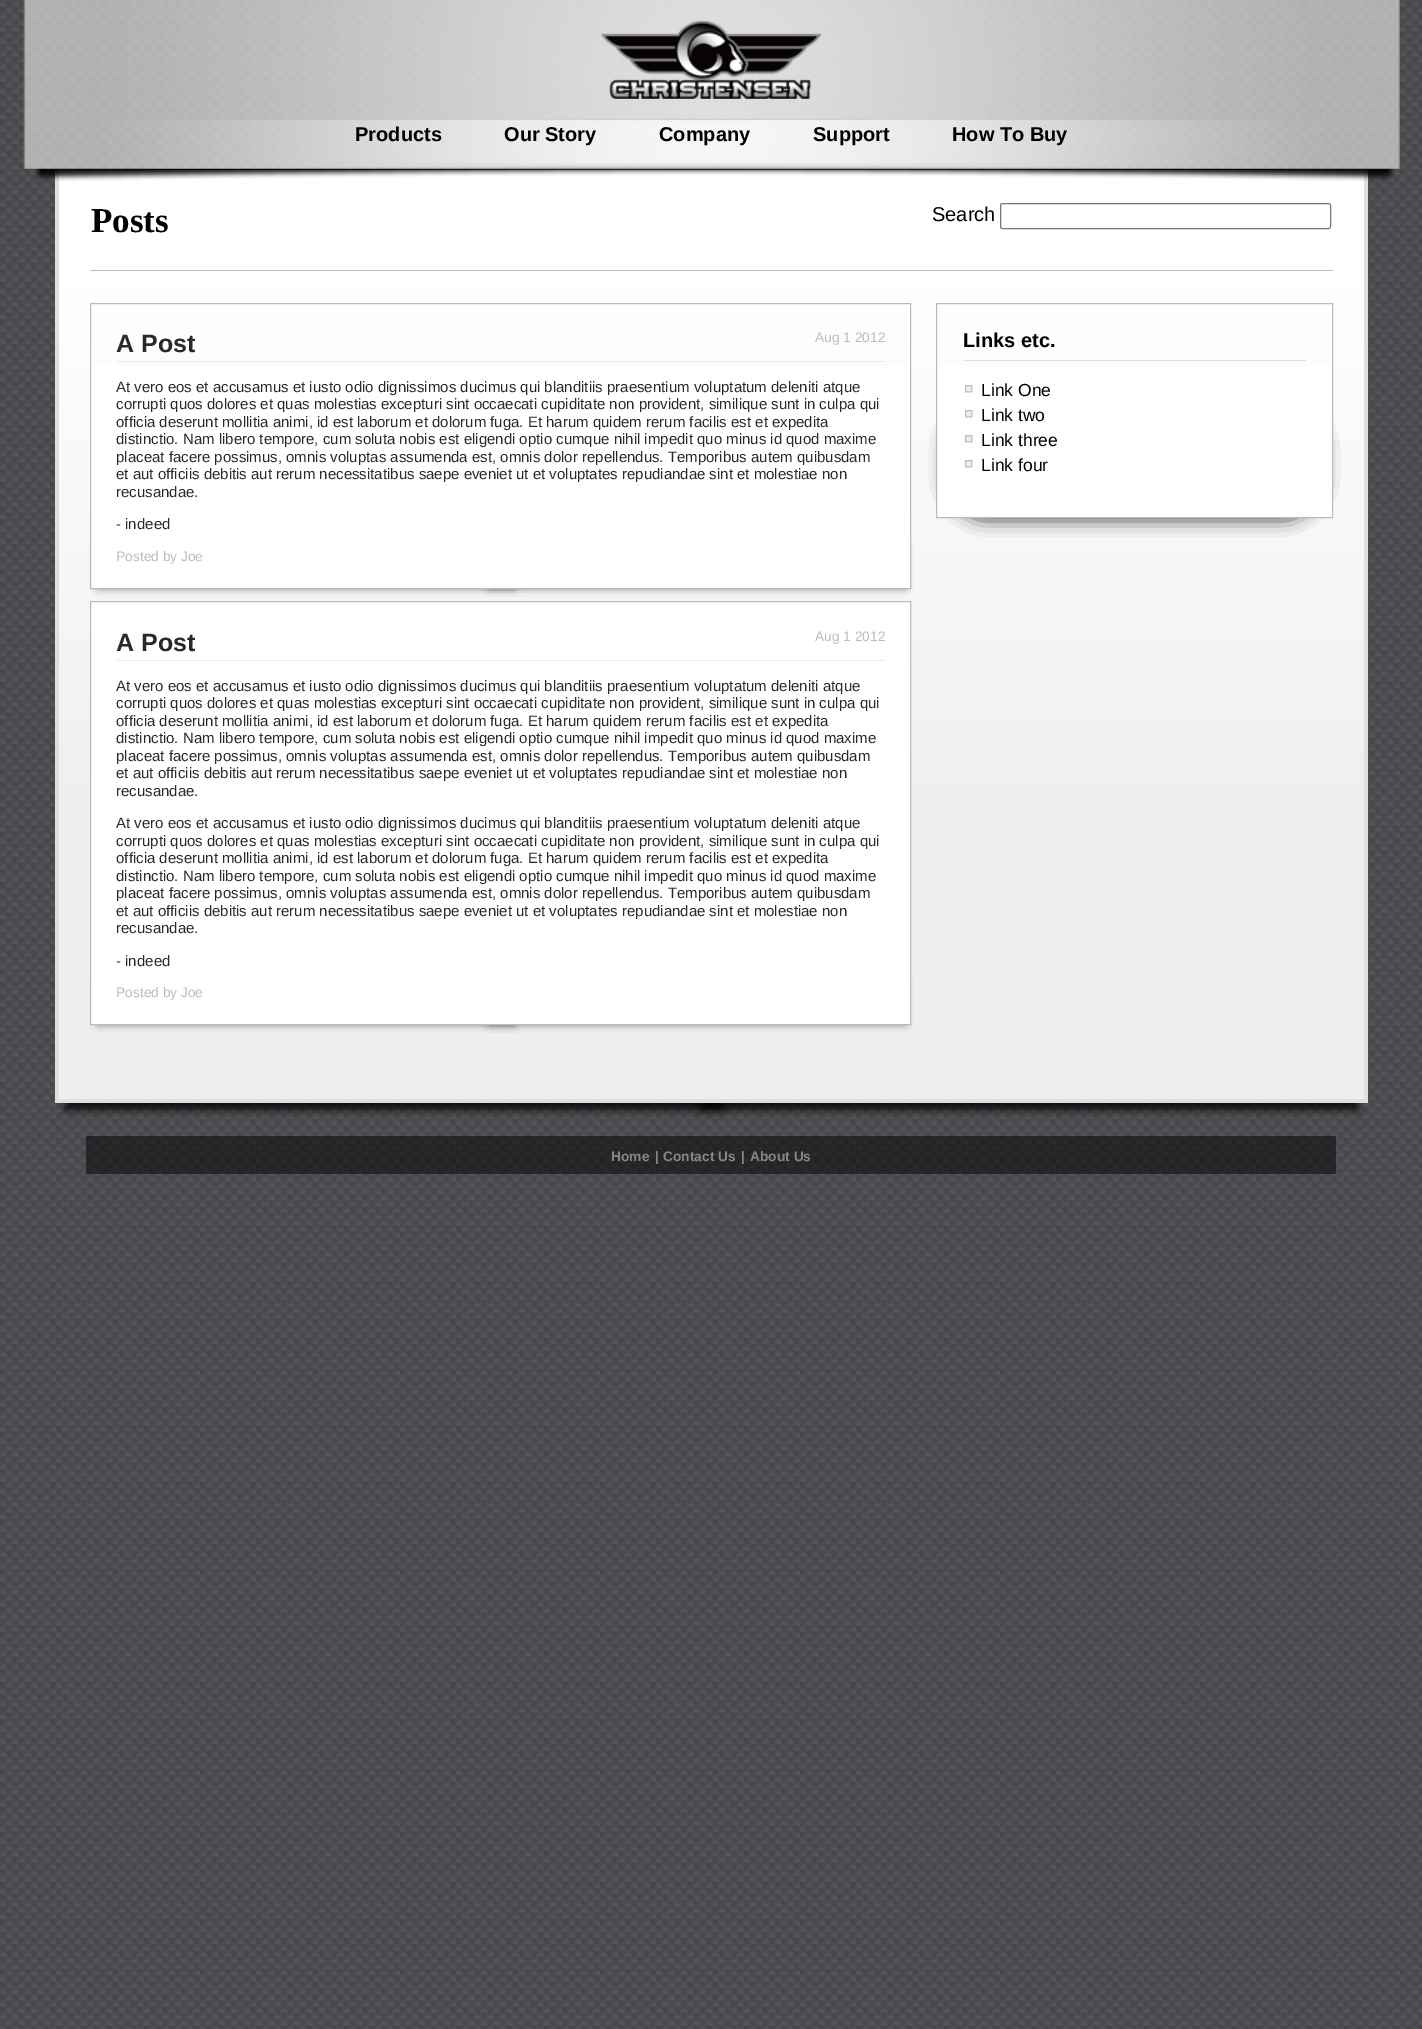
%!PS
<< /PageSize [1422 2029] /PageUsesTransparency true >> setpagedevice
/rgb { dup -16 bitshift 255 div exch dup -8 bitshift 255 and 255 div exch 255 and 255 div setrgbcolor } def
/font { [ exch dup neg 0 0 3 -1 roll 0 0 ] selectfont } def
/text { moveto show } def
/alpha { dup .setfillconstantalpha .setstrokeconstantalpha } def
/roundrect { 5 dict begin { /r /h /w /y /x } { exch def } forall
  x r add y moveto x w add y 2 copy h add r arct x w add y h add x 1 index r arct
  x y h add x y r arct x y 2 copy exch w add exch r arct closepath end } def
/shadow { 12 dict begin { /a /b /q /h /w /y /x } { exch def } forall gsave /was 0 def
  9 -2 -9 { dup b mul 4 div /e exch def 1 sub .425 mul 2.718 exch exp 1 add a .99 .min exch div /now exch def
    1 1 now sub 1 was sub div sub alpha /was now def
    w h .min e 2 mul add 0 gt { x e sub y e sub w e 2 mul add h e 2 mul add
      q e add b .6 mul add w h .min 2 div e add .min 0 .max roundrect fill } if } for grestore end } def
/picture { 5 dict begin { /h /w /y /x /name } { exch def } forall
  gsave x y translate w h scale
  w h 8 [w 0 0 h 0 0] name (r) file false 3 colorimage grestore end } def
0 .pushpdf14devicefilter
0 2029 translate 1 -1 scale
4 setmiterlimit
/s1 { /LiberationSans-Bold 20 font 16#000000 rgb } def
/s2 { /LiberationSerif-Bold 35 font 16#000000 rgb } def
/s3 { /LiberationSans-Regular 20 font 16#000000 rgb } def
/s4 { /LiberationSans-Bold 25 font 16#29292B rgb } def
/s5 { /LiberationSans-Regular 13.75 font 16#BBBBBB rgb } def
/s6 { /LiberationSans-Regular 15 font 16#29292B rgb } def
/s7 { /LiberationSans-Regular 17.5 font 16#000000 rgb } def
/s8 { /LiberationSans-Bold 13.75 font 16#868686 rgb } def
16#FFFFFF rgb
0 0 1422 2029 rectfill
(pic1.raw) 0 0 1422 2029 picture
16#000000 rgb
65 1068 658 42 0 4 0.8 shadow
700 1068 658 42 0 4 0.8 shadow
gsave 59 170 moveto 1364 170 lineto 1364 1099 lineto 59 1099 lineto closepath clip newpath
<< /ShadingType 2 /ColorSpace /DeviceRGB /Coords [711 170 711 1099] /Extend [true true] /Function << /FunctionType 3 /Domain [0 1] /Functions [<< /FunctionType 2 /Domain [0 1] /C0 [1 1 1] /C1 [1 1 1] /N 1 >> << /FunctionType 2 /Domain [0 1] /C0 [1 1 1] /C1 [0.933 0.933 0.933] /N 1 >> << /FunctionType 2 /Domain [0 1] /C0 [0.933 0.933 0.933] /C1 [0.933 0.933 0.933] /N 1 >>] /Bounds [0.12 0.74] /Encode [0 1 0 1 0 1] >> >> shfill grestore
16#DFDFDF rgb
1364 170 4 933 rectfill
55 1099 1313 4 rectfill
55 170 4 933 rectfill
(pic2.raw) 23 0 1377 182 picture
(pic3.raw) 601 21 221 78 picture
s1
(Products) 355 141 text
(Our Story) 504 141 text
(Company) 659 141 text
(Support) 813 141 text
(How To Buy) 952 141 text
16#BBBBBB rgb
90 270 1243 1 rectfill
s2
(Posts) 91 232 text
s3
(Search) 932 221 text
16#767676 rgb
1000.5 203.5 330 25 2 roundrect stroke
16#000000 rgb
98 545 416 43 0 4 0.6 shadow
490 545 415 43 0 4 0.6 shadow
16#FFFFFF rgb
91 366 819 222 rectfill
16#BBBBBB rgb
90.5 303.5 820 285 rectstroke
16#EBEBEB rgb
116 361 769 1 rectfill
s4
(A Post) 116 352 text
s5
(Aug 1 2012) 815 342 text
s6
(At vero eos et accusamus et iusto odio dignissimos ducimus qui blanditiis praesentium voluptatum deleniti atque) 116 392 text
(corrupti quos dolores et quas molestias excepturi sint occaecati cupiditate non provident, similique sunt in culpa qui) 116 409 text
(officia deserunt mollitia animi, id est laborum et dolorum fuga. Et harum quidem rerum facilis est et expedita) 116 427 text
(distinctio. Nam libero tempore, cum soluta nobis est eligendi optio cumque nihil impedit quo minus id quod maxime) 116 444 text
(placeat facere possimus, omnis voluptas assumenda est, omnis dolor repellendus. Temporibus autem quibusdam) 116 462 text
(et aut officiis debitis aut rerum necessitatibus saepe eveniet ut et voluptates repudiandae sint et molestiae non) 116 479 text
(recusandae.) 116 497 text
(- indeed) 116 529 text
s5
(Posted by Joe) 116 561 text
16#000000 rgb
950 410 369 106 35 9.5 0.6 shadow
950 410 369 106 35 9.5 0.6 shadow
16#FFFFFF rgb
937 366 395 151 rectfill
16#BBBBBB rgb
936.5 303.5 396 214 rectstroke
16#DEDEDE rgb
963 360 343 1 rectfill
s1
(Links etc.) 963 347 text
(pic4.raw) 965 385 8 8 picture
s7
(Link One) 981 396 text
(pic4.raw) 965 410 8 8 picture
(Link two) 981 421 text
(pic4.raw) 965 435 8 8 picture
(Link three) 981 446 text
(pic4.raw) 965 460 8 8 picture
(Link four) 981 471 text
98 981 416 43 0 4 0.6 shadow
490 981 415 43 0 4 0.6 shadow
16#FFFFFF rgb
90.5 601.5 moveto 910.5 601.5 lineto 910.5 1024.5 lineto 90.5 1024.5 lineto closepath gsave fill grestore
16#BBBBBB rgb
stroke
16#EBEBEB rgb
116 660 769 1 rectfill
s4
(A Post) 116 651 text
s5
(Aug 1 2012) 815 641 text
s6
(At vero eos et accusamus et iusto odio dignissimos ducimus qui blanditiis praesentium voluptatum deleniti atque) 116 691 text
(corrupti quos dolores et quas molestias excepturi sint occaecati cupiditate non provident, similique sunt in culpa qui) 116 708 text
(officia deserunt mollitia animi, id est laborum et dolorum fuga. Et harum quidem rerum facilis est et expedita) 116 726 text
(distinctio. Nam libero tempore, cum soluta nobis est eligendi optio cumque nihil impedit quo minus id quod maxime) 116 743 text
(placeat facere possimus, omnis voluptas assumenda est, omnis dolor repellendus. Temporibus autem quibusdam) 116 761 text
(et aut officiis debitis aut rerum necessitatibus saepe eveniet ut et voluptates repudiandae sint et molestiae non) 116 778 text
(recusandae.) 116 796 text
(At vero eos et accusamus et iusto odio dignissimos ducimus qui blanditiis praesentium voluptatum deleniti atque) 116 828 text
(corrupti quos dolores et quas molestias excepturi sint occaecati cupiditate non provident, similique sunt in culpa qui) 116 846 text
(officia deserunt mollitia animi, id est laborum et dolorum fuga. Et harum quidem rerum facilis est et expedita) 116 863 text
(distinctio. Nam libero tempore, cum soluta nobis est eligendi optio cumque nihil impedit quo minus id quod maxime) 116 881 text
(placeat facere possimus, omnis voluptas assumenda est, omnis dolor repellendus. Temporibus autem quibusdam) 116 898 text
(et aut officiis debitis aut rerum necessitatibus saepe eveniet ut et voluptates repudiandae sint et molestiae non) 116 916 text
(recusandae.) 116 933 text
(- indeed) 116 966 text
s5
(Posted by Joe) 116 997 text
0.5 alpha
16#000000 rgb
86 1136 1250 38 rectfill
1 alpha
s8
(Home) 611 1161 text
(|) 655 1161 text
(Contact Us) 663 1161 text
(|) 741 1161 text
(About Us) 750 1161 text
.poppdf14devicefilter showpage
